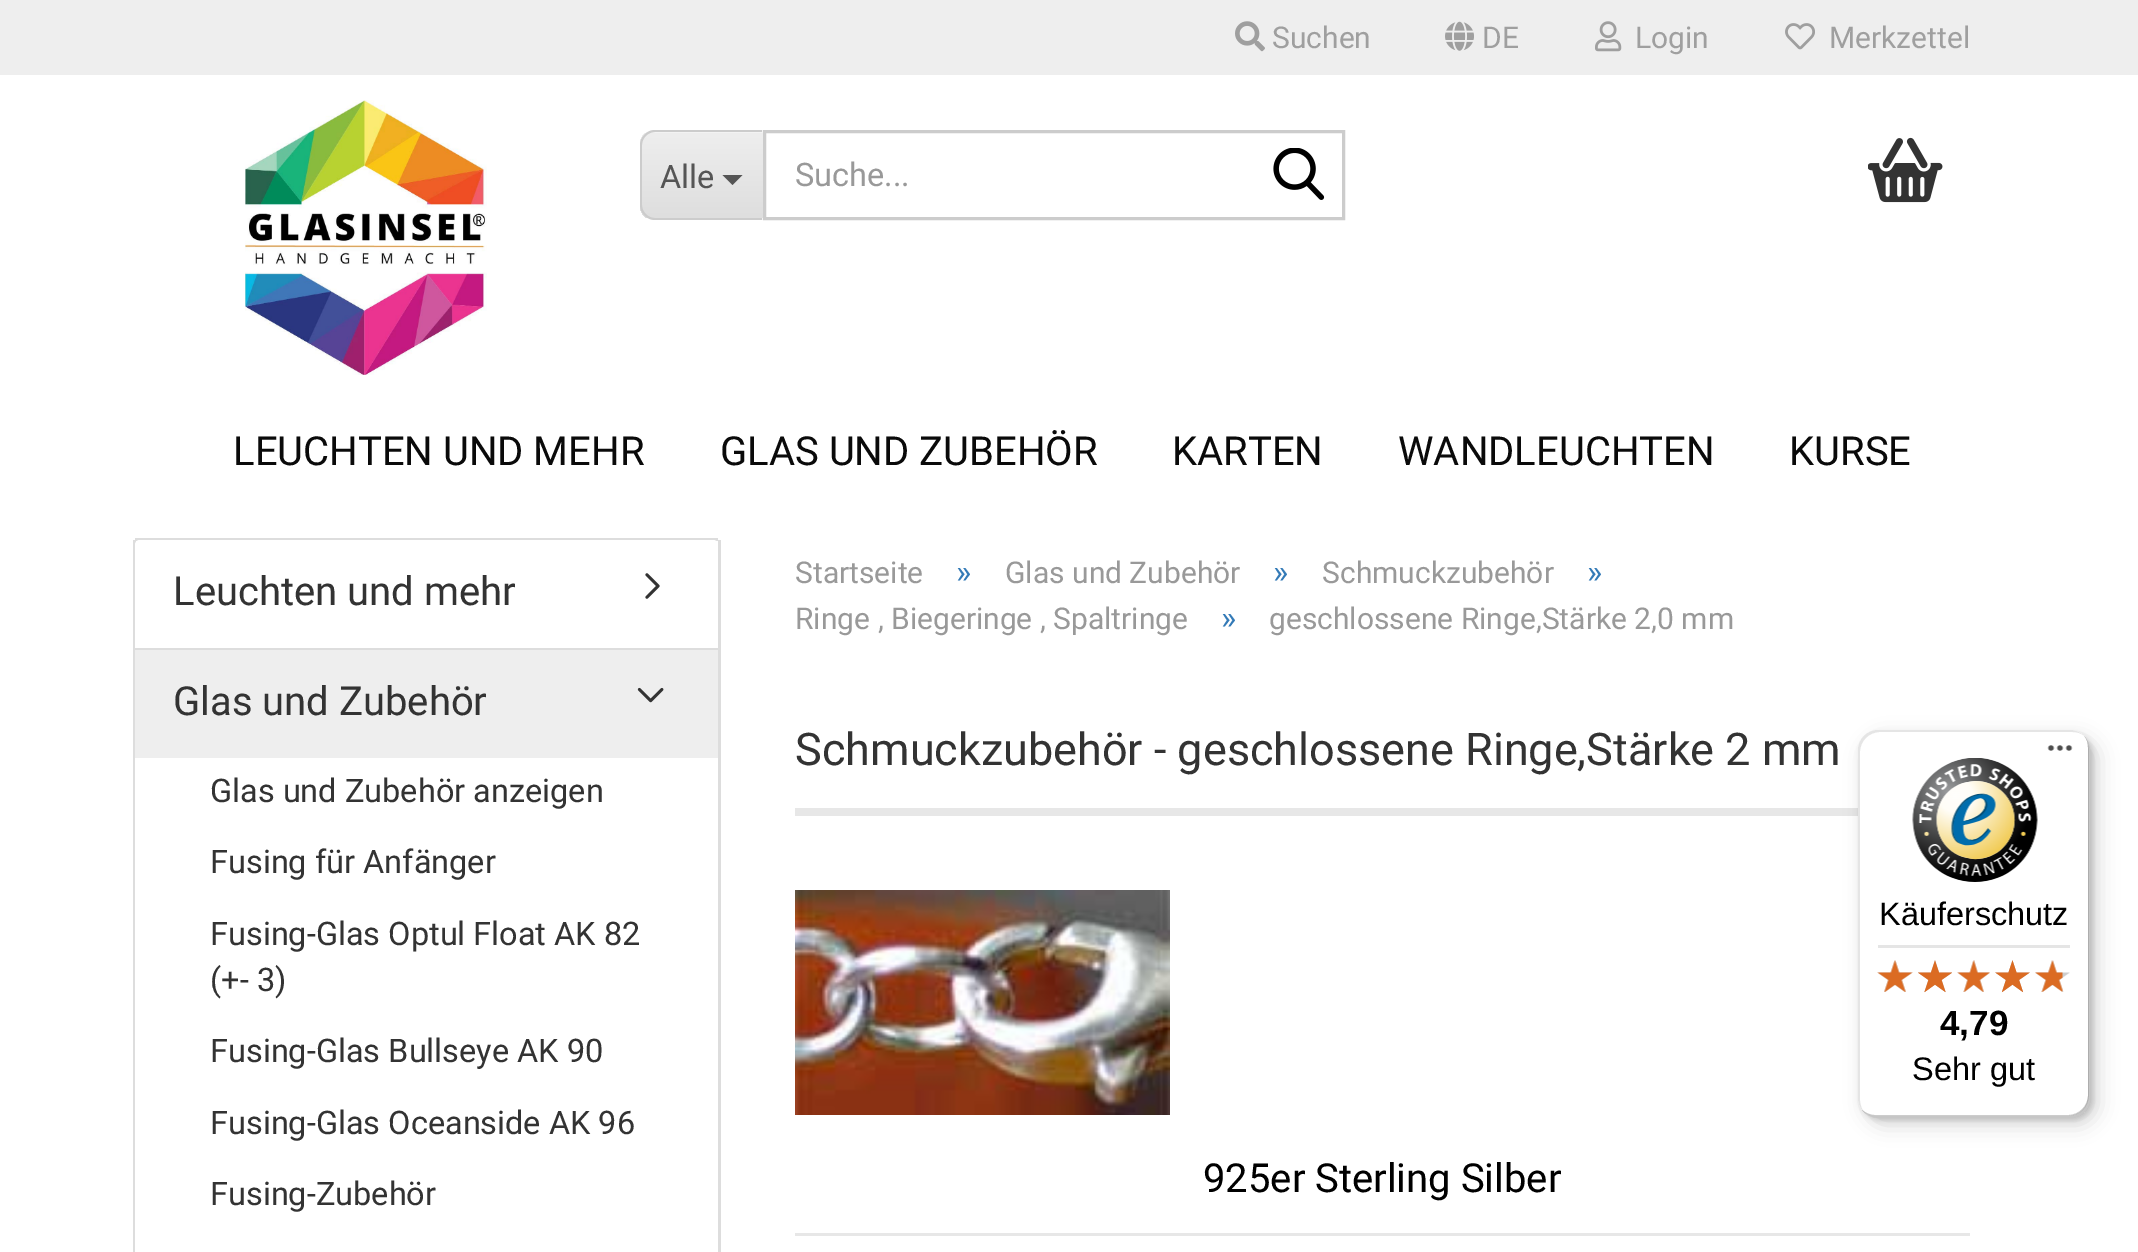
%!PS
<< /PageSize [2138 1252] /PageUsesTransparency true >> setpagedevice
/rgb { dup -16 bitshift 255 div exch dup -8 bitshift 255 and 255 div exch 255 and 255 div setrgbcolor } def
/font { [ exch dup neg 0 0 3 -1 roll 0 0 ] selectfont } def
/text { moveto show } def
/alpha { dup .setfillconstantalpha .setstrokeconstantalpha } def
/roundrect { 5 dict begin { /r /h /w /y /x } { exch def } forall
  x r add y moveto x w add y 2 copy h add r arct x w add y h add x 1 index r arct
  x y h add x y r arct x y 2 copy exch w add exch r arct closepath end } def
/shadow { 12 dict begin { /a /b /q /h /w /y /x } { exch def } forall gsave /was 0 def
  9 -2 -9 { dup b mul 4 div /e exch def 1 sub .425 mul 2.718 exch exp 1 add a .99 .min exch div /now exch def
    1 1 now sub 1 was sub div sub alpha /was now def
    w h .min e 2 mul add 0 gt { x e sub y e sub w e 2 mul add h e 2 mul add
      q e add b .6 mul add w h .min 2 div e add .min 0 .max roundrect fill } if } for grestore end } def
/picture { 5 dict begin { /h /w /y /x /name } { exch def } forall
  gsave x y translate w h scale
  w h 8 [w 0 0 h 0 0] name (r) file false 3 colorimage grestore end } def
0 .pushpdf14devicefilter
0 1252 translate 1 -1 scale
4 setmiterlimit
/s1 { /Roboto-Regular 30 font 16#9F9F9F rgb } def
/s2 { /Roboto-Regular 32.5 font 16#555555 rgb } def
/s3 { /Roboto-Regular 32.5 font 16#999999 rgb } def
/s4 { /Roboto-Regular 40 font 16#0A0A0A rgb } def
/s5 { /Roboto-Regular 40 font 16#333333 rgb } def
/s6 { /Roboto-Regular 32.5 font 16#333333 rgb } def
/s7 { /Roboto-Regular 30 font 16#999999 rgb } def
/s8 { /Roboto-Regular 32.5 font 16#337AB7 rgb } def
/s9 { /Roboto-Regular 45 font 16#333333 rgb } def
/s10 { /Roboto-Regular 40 font 16#000000 rgb } def
/s11 { /LiberationSans-Regular 32.5 font 16#000000 rgb } def
/s12 { /LiberationSans-Bold 35 font 16#000000 rgb } def
16#FFFFFF rgb
0 0 2138 1252 rectfill
16#EEEEEE rgb
0 0 2138 75 rectfill
(pic1.raw) 1235 21 30 31 picture
s1
(Suchen) 1272 48 text
(pic2.raw) 1445 21 29 30 picture
(DE) 1482 48 text
(pic3.raw) 1595 21 27 31 picture
(Login) 1635 48 text
(pic4.raw) 1785 23 30 27 picture
(Merkzettel) 1829 48 text
(pic5.raw) 245 100 242 275 picture
16#F3F3F3 rgb
655 130 moveto 763 130 lineto 763 220 lineto 655 220 lineto 646.5 220 640 213.5 640 205 curveto 640 145 lineto 640 136.5 646.5 130 655 130 curveto closepath fill
gsave
655 130 moveto 763 130 lineto 763 220 lineto 655 220 lineto 646.5 220 640 213.5 640 205 curveto 640 145 lineto 640 136.5 646.5 130 655 130 curveto closepath clip newpath
gsave 640 133 moveto 763 133 lineto 763 218 lineto 640 218 lineto closepath clip newpath
<< /ShadingType 2 /ColorSpace /DeviceRGB /Coords [703 133 703 218] /Extend [true true] /Function << /FunctionType 2 /Domain [0 1] /C0 [0.933 0.933 0.933] /C1 [0.871 0.871 0.871] /N 1 >> >> shfill grestore
grestore
16#CCCCCC rgb
655 130 moveto 762 130 lineto 762 220 lineto 655 220 lineto 647 220 640 213 640 205 curveto 640 145 lineto 640 137 647 130 655 130 curveto closepath 655 132 moveto 762 132 lineto 762 218 lineto 655 218 lineto 648 218 642 212 642 205 curveto 642 145 lineto 642 138 648 132 655 132 curveto closepath eofill
s2
(Alle) 660 188 text
722.5 175 moveto 742.5 175 lineto 732.5 185 lineto closepath fill
16#CCCCCC rgb
3 setlinewidth
764.5 131.5 579 87 rectstroke
s3
(Suche...) 795 186 text
(pic6.raw) 1273 148 52 52 picture
(pic7.raw) 1868 137 75 66 picture
s4
(LEUCHTEN UND MEHR) 233 465 text
(GLAS UND ZUBEHÖR) 720 465 text
(KARTEN) 1172 465 text
(WANDLEUCHTEN) 1398 465 text
(KURSE) 1789 465 text
16#DDDDDD rgb
135 538 583 3 rectfill
718 540 3 712 rectfill
133 540 3 712 rectfill
135 648 583 2 rectfill
16#FFFFFF rgb
140 540 moveto 713 540 lineto 716 540 718 542 718 545 curveto 718 648 lineto 135 648 lineto 135 545 lineto 135 542 137 540 140 540 curveto closepath fill
s5
(Leuchten und mehr) 173 605 text
(pic8.raw) 645 573 15 26 picture
16#EEEEEE rgb
135 650 583 108 rectfill
s5
(Glas und Zubehör) 173 715 text
(pic9.raw) 637 687 27 16 picture
16#FFFFFF rgb
135 758 1 494 rectfill
s6
(Glas und Zubehör anzeigen) 210 802 text
(Fusing für Anfänger) 210 873 text
(Fusing-Glas Optul Float AK 82) 210 945 text
(\(+- 3\)) 210 991 text
(Fusing-Glas Bullseye AK 90) 210 1062 text
(Fusing-Glas Oceanside AK 96) 210 1134 text
(Fusing-Zubehör) 210 1205 text
s7
(Startseite) 795 583 text
s8
(») 956 583 text
s7
(Glas und Zubehör) 1005 583 text
s8
(») 1273 583 text
s7
(Schmuckzubehör) 1322 583 text
s8
(») 1587 583 text
s7
(Ringe , Biegeringe , Spaltringe) 795 629 text
s8
(») 1221 629 text
s7
(geschlossene Ringe,Stärke 2,0 mm) 1269 629 text
16#E7E7E7 rgb
795 808 1063 8 rectfill
s9
(Schmuckzubehör - geschlossene Ringe,Stärke 2 mm) 795 765 text
(pic10.raw) 795 890 375 225 picture
s10
(925er Sterling Silber) 1203 1192 text
16#E7E7E7 rgb
795 1233 1175 3 rectfill
16#000000 rgb
1865 738 233 387 20 10 0.15 shadow
1860 733 233 387 20 2.5 0.15 shadow
16#FFFFFF rgb
1858 730 232 388 20 roundrect fill
16#E5E5E5 rgb
1880 732 moveto 2072 732 lineto 2077 732 2081 733 2084 736 curveto 2080 732 2075 730 2070 730 curveto 1878 730 lineto 1867 730 1858 739 1858 750 curveto 1858 1098 lineto 1858 1104 1861 1110 1865 1113 curveto 1862 1110 1860 1105 1860 1100 curveto 1860 752 lineto 1860 741 1869 732 1880 732 curveto closepath fill
0.2 alpha
16#000000 rgb
1862 1110 moveto 1866 1115 1872 1118 1878 1118 curveto 2070 1118 lineto 2081 1118 2090 1109 2090 1098 curveto 2090 750 lineto 2090 745 2088 740 2084 736 curveto 2087 739 2088 743 2088 748 curveto 2088 1095 lineto 2088 1106 2079 1115 2068 1115 curveto 1875 1115 lineto 1870 1115 1866 1113 1862 1110 curveto closepath fill
16#323232 rgb
1863 1111 moveto 1866 1115 1872 1118 1878 1118 curveto 2070 1118 lineto 2081 1118 2090 1109 2090 1098 curveto 2090 750 lineto 2090 745 2088 740 2084 736 curveto 2087 739 2088 743 2088 748 curveto 2088 1096 lineto 2088 1107 2080 1116 2068 1116 curveto 1876 1116 lineto 1871 1116 1866 1114 1863 1111 curveto closepath fill
0.3 alpha
16#FFFFFF rgb
1863 1111 moveto 1866 1115 1872 1118 1878 1118 curveto 2070 1118 lineto 2081 1118 2090 1109 2090 1098 curveto 2090 750 lineto 2090 744 2087 739 2083 735 curveto 2087 739 2089 744 2089 749 curveto 2089 1096 lineto 2089 1107 2080 1116 2069 1116 curveto 1876 1116 lineto 1871 1116 1866 1114 1863 1111 curveto closepath fill
1 alpha
(pic11.raw) 2047 745 26 6 picture
(pic12.raw) 1912 758 126 124 picture
s11
(Käuferschutz) 1879 925 text
16#E5E5E5 rgb
1878 945 192 3 rectfill
(pic13.raw) 1877 960 36 32 picture
(pic14.raw) 1918 960 34 32 picture
(pic15.raw) 1957 960 33 32 picture
(pic16.raw) 1995 960 35 32 picture
(pic17.raw) 2035 960 35 32 picture
(pic18.raw) 1877 960 36 32 picture
(pic19.raw) 1918 960 34 33 picture
(pic20.raw) 1957 960 33 32 picture
(pic21.raw) 1995 960 35 33 picture
(pic22.raw) 2035 960 28 32 picture
s12
(4,79) 1940 1035 text
s11
(Sehr gut) 1912 1080 text
.poppdf14devicefilter showpage
